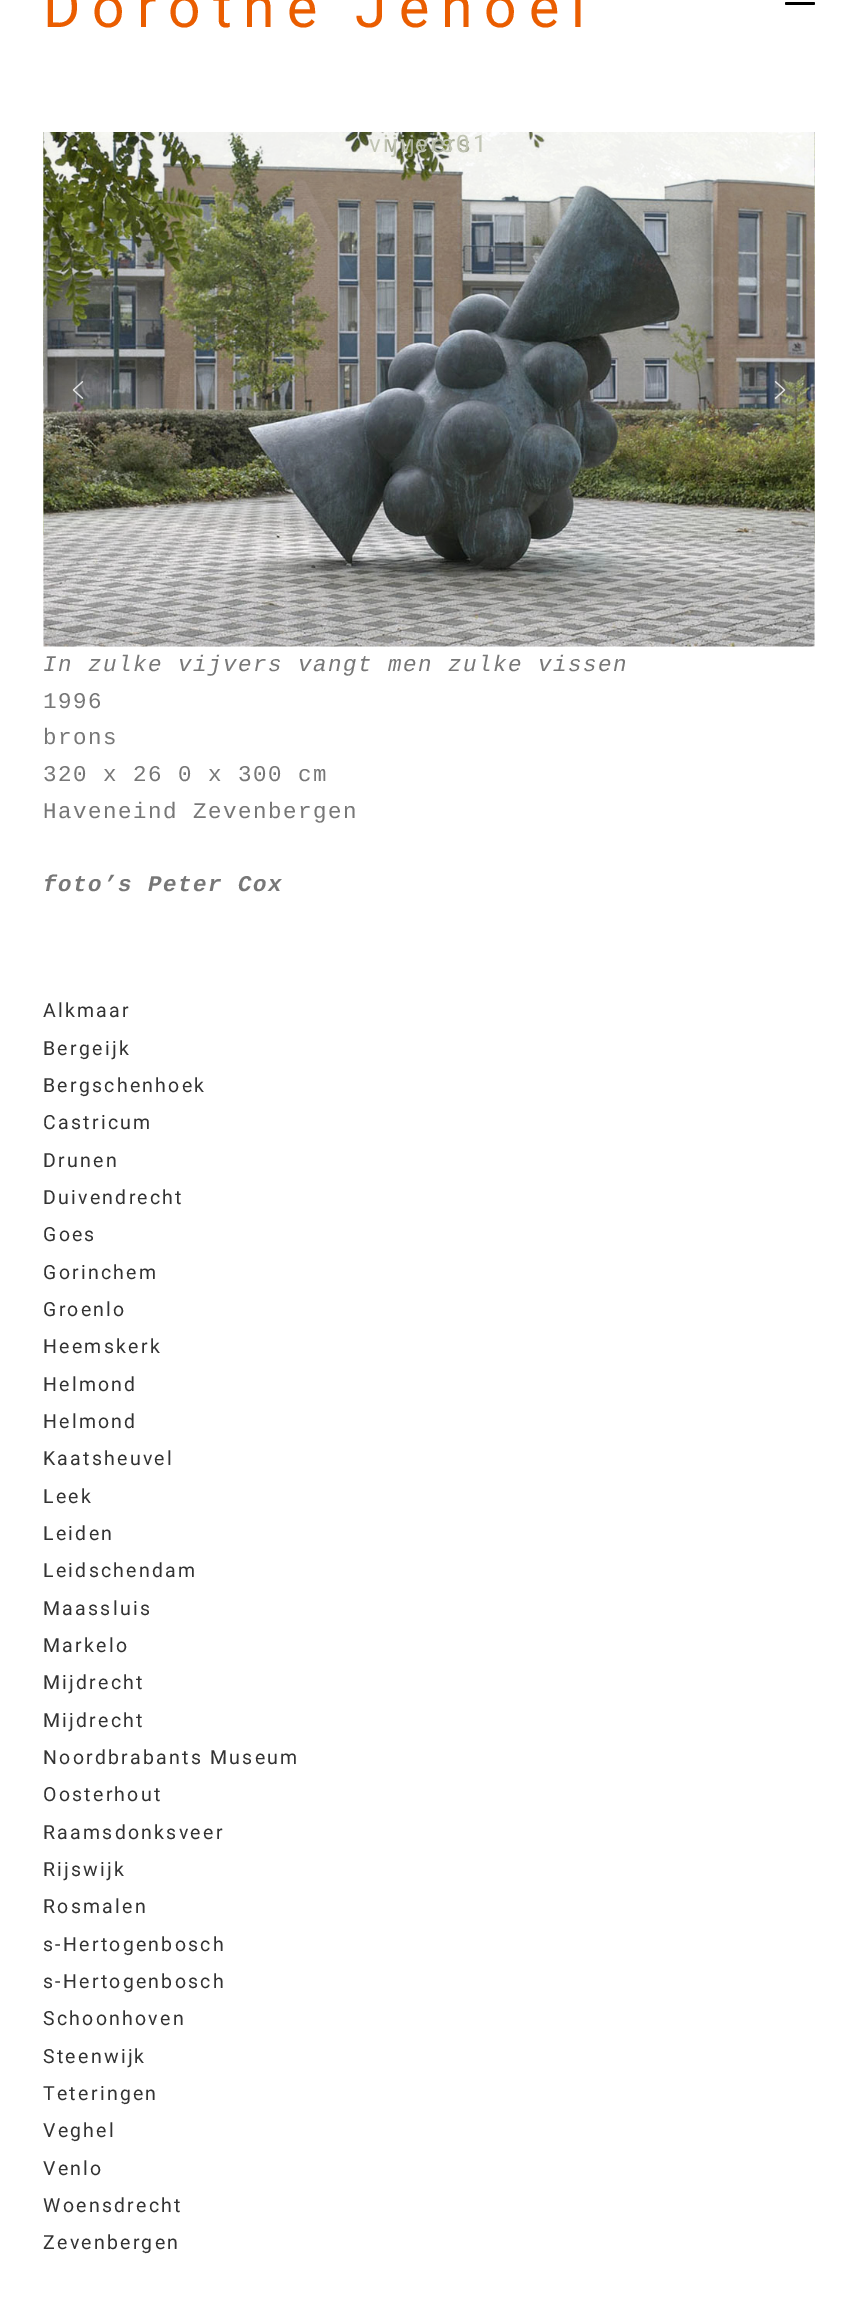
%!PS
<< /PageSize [858 2308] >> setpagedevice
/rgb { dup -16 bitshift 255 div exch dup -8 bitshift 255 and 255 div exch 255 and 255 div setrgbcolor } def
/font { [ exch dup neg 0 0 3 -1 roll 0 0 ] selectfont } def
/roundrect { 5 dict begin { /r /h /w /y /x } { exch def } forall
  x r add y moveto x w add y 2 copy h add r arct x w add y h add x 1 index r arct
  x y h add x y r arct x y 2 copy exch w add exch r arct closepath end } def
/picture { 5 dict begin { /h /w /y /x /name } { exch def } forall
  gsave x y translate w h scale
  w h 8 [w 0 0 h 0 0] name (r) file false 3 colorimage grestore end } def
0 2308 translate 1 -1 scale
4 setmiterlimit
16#FFFFFF rgb
0 0 858 2308 rectfill
/Roboto-Regular 57 font
16#EA5D00 rgb
43 27 moveto 12 0 (Dorothé Jehoel) ashow
16#000000 rgb
785 2 30 3 1.5 roundrect fill
(pic1.raw) 43 132 772 515 picture
(pic2.raw) 43 132 772 515 picture
/Roboto-Regular 24 font
16#A7AB98 rgb
386 152 moveto 2.75 0 (vijvers) ashow
16#C1C5B4 rgb
369 152 moveto 2.75 0 (vijvers01) ashow
(pic3.raw) 72 381 12 18 picture
(pic4.raw) 774 381 12 18 picture
/LiberationMono-Italic 22.5 font
16#777777 rgb
43 671 moveto 1.5 0 (In zulke vijvers vangt men zulke vissen) ashow
/LiberationMono-Regular 22.5 font
43 708 moveto 1.5 0 (1996) ashow
43 744 moveto 1.5 0 (brons) ashow
43 781 moveto 1.5 0 (320 x 26 0 x 300 cm) ashow
43 818 moveto 1.5 0 (Haveneind Zevenbergen) ashow
/LiberationMono-BoldItalic 22.5 font
43 891 moveto 1.5 0 (foto’s Peter Cox) ashow
/Roboto-Regular 19.5 font
16#333333 rgb
43 1017 moveto 2.25 0 (Alkmaar) ashow
43 1055 moveto 2.25 0 (Bergeijk) ashow
43 1092 moveto 2.25 0 (Bergschenhoek) ashow
43 1129 moveto 2.25 0 (Castricum) ashow
43 1167 moveto 2.25 0 (Drunen) ashow
43 1204 moveto 2.25 0 (Duivendrecht) ashow
43 1241 moveto 2.25 0 (Goes) ashow
43 1279 moveto 2.25 0 (Gorinchem) ashow
43 1316 moveto 2.25 0 (Groenlo) ashow
43 1353 moveto 2.25 0 (Heemskerk) ashow
43 1391 moveto 2.25 0 (Helmond) ashow
43 1428 moveto 2.25 0 (Helmond) ashow
43 1465 moveto 2.25 0 (Kaatsheuvel) ashow
43 1503 moveto 2.25 0 (Leek) ashow
43 1540 moveto 2.25 0 (Leiden) ashow
43 1577 moveto 2.25 0 (Leidschendam) ashow
43 1615 moveto 2.25 0 (Maassluis) ashow
43 1652 moveto 2.25 0 (Markelo) ashow
43 1689 moveto 2.25 0 (Mijdrecht) ashow
43 1727 moveto 2.25 0 (Mijdrecht) ashow
43 1764 moveto 2.25 0 (Noordbrabants Museum) ashow
43 1801 moveto 2.25 0 (Oosterhout) ashow
43 1839 moveto 2.25 0 (Raamsdonksveer) ashow
43 1876 moveto 2.25 0 (Rijswijk) ashow
43 1913 moveto 2.25 0 (Rosmalen) ashow
43 1951 moveto 2.25 0 (s-Hertogenbosch) ashow
43 1988 moveto 2.25 0 (s-Hertogenbosch) ashow
43 2025 moveto 2.25 0 (Schoonhoven) ashow
43 2063 moveto 2.25 0 (Steenwijk) ashow
43 2100 moveto 2.25 0 (Teteringen) ashow
43 2137 moveto 2.25 0 (Veghel) ashow
43 2175 moveto 2.25 0 (Venlo) ashow
43 2212 moveto 2.25 0 (Woensdrecht) ashow
43 2249 moveto 2.25 0 (Zevenbergen) ashow
showpage
